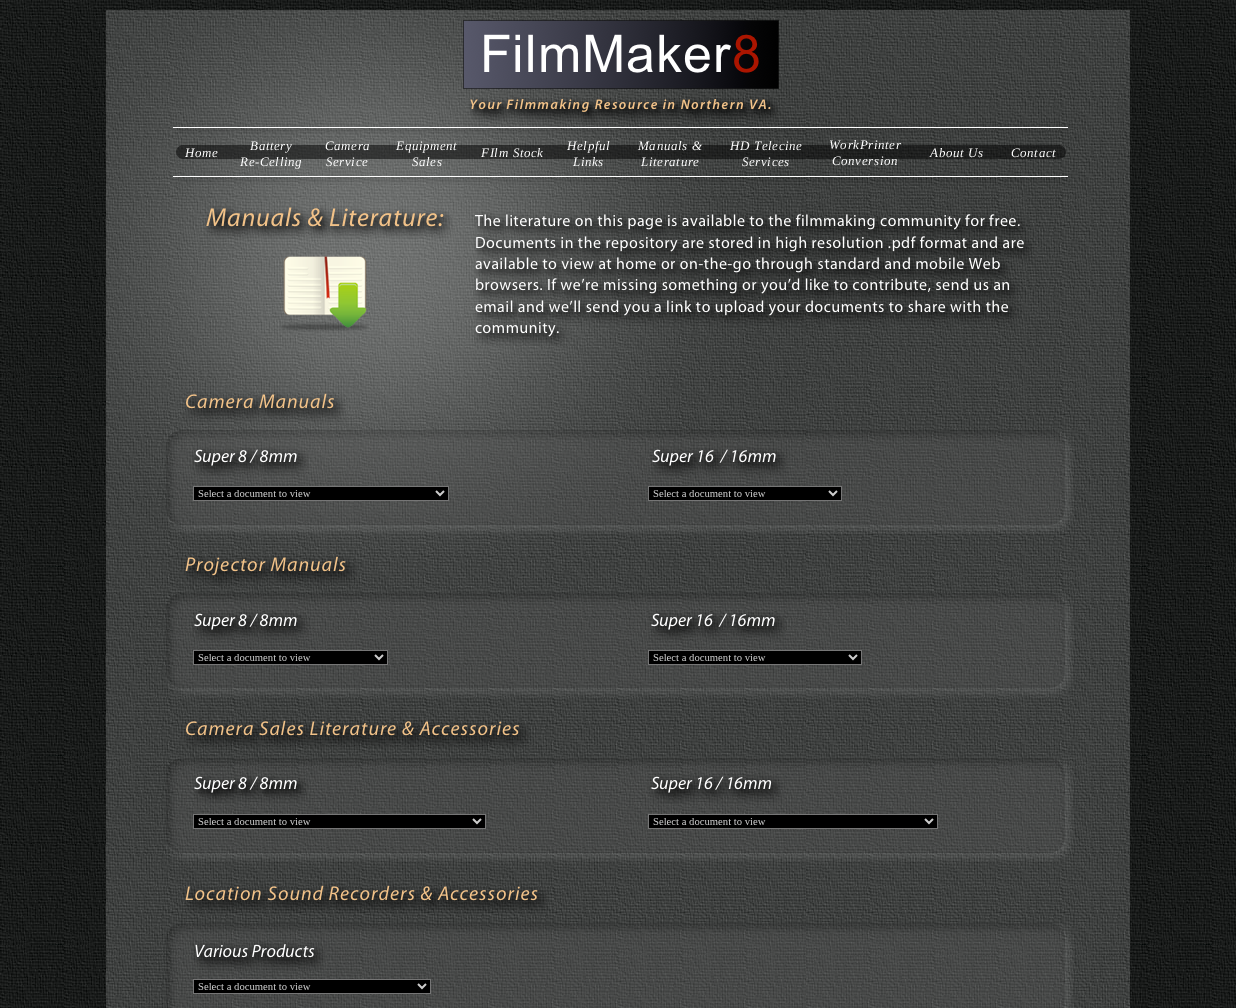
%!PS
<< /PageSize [1236 1008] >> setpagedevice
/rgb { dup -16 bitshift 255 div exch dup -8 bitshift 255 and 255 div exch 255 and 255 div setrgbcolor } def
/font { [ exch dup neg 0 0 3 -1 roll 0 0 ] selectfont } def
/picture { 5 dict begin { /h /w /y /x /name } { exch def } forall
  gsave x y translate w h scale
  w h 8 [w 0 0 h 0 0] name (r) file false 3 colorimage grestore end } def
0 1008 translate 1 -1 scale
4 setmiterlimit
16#FFFFFF rgb
0 0 1236 1008 rectfill
(pic1.raw) 0 0 1236 1008 picture
(pic2.raw) 106 10 1024 998 picture
(pic3.raw) 106 10 700 620 picture
(pic4.raw) 463 20 316 69 picture
(pic5.raw) 468 97 311 27 picture
(pic6.raw) 173 127 896 6 picture
(pic7.raw) 176 145 890 14 picture
/LiberationSerif-Italic 13 font
250 150 moveto 0.6 0 (Battery) ashow
240 166 moveto 0.6 0 (Re-Celling) ashow
325 150 moveto 0.6 0 (Camera) ashow
326 166 moveto 0.6 0 (Service) ashow
396 150 moveto 0.6 0 (Equipment) ashow
412 166 moveto 0.6 0 (Sales) ashow
567 150 moveto 0.6 0 (Helpful) ashow
573 166 moveto 0.6 0 (Links) ashow
638 150 moveto 0.6 0 (Manuals &) ashow
641 166 moveto 0.6 0 (Literature) ashow
730 150 moveto 0.6 0 (HD Telecine) ashow
742 166 moveto 0.6 0 (Services) ashow
829 149 moveto 0.6 0 (WorkPrinter) ashow
832 165 moveto 0.6 0 (Conversion) ashow
185 157 moveto 0.6 0 (Home) ashow
481 157 moveto 0.6 0 (FIlm Stock) ashow
930 157 moveto 0.6 0 (About Us) ashow
1011 157 moveto 0.6 0 (Contact) ashow
(pic8.raw) 173 176 895 7 picture
(pic9.raw) 204 206 249 33 picture
(pic10.raw) 473 212 560 134 picture
(pic11.raw) 280 256 89 76 picture
(pic12.raw) 184 392 162 31 picture
(pic13.raw) 166 430 908 104 picture
(pic14.raw) 192 447 117 30 picture
(pic15.raw) 650 447 138 30 picture
(pic16.raw) 193 486 256 15 picture
(pic17.raw) 648 486 194 15 picture
(pic18.raw) 184 556 173 31 picture
(pic19.raw) 166 593 908 104 picture
(pic20.raw) 192 611 117 30 picture
(pic21.raw) 649 611 137 30 picture
(pic22.raw) 193 650 195 15 picture
(pic23.raw) 648 650 214 15 picture
(pic24.raw) 184 720 346 28 picture
(pic25.raw) 166 758 908 104 picture
(pic26.raw) 194 775 114 28 picture
(pic27.raw) 649 774 134 30 picture
(pic28.raw) 193 814 293 15 picture
(pic29.raw) 648 814 290 15 picture
(pic30.raw) 184 885 364 28 picture
(pic31.raw) 166 923 908 85 picture
(pic32.raw) 192 942 133 29 picture
(pic33.raw) 193 979 238 15 picture
showpage
